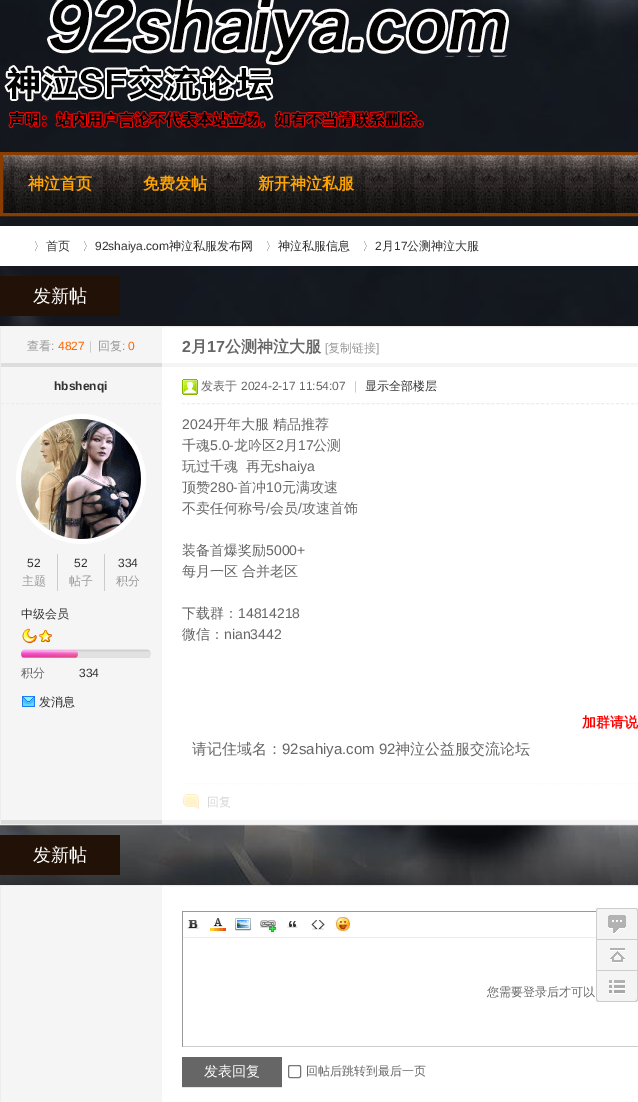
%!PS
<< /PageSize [638 1102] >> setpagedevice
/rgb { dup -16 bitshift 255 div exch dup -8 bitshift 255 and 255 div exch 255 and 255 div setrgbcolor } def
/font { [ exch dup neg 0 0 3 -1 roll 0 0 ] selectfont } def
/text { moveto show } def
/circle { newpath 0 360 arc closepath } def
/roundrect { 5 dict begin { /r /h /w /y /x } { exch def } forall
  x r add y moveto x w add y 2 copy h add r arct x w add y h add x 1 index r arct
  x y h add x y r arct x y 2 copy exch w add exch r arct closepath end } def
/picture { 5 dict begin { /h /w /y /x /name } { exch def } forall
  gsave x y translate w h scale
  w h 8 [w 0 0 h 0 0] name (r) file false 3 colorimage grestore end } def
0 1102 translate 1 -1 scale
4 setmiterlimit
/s1 { /WenQuanYiZenHei-Bold 16 font 16#FFA400 rgb } def
/s2 { /WenQuanYiZenHei-Medium 12 font 16#333333 rgb } def
/s3 { /LiberationSans-Regular 12 font 16#333333 rgb } def
/s4 { /WenQuanYiZenHei-Medium 18 font 16#FFFFFF rgb } def
/s5 { /WenQuanYiZenHei-Medium 12 font 16#999999 rgb } def
/s6 { /LiberationSans-Regular 12 font 16#999999 rgb } def
/s7 { /LiberationSans-Regular 12 font 16#FF6600 rgb } def
/s8 { /LiberationSans-Regular 12 font 16#CCCCCC rgb } def
/s9 { /LiberationSans-Bold 16 font 16#666666 rgb } def
/s10 { /WenQuanYiZenHei-Bold 16 font 16#666666 rgb } def
/s11 { /LiberationSans-Bold 12 font 16#333333 rgb } def
/s12 { /WenQuanYiZenHei-Medium 12 font 16#666666 rgb } def
/s13 { /LiberationSans-Regular 12 font 16#666666 rgb } def
/s14 { /LiberationSans-Regular 14 font 16#666666 rgb } def
/s15 { /WenQuanYiZenHei-Medium 14 font 16#666666 rgb } def
/s16 { /WenQuanYiZenHei-Bold 14 font 16#FF0000 rgb } def
/s17 { /WenQuanYiZenHei-Medium 15 font 16#666666 rgb } def
/s18 { /LiberationSans-Regular 15 font 16#666666 rgb } def
/s19 { /WenQuanYiZenHei-Medium 12 font 16#D6D6D6 rgb } def
/s20 { /WenQuanYiZenHei-Medium 14 font 16#FFFFFF rgb } def
16#FFFFFF rgb
0 0 638 1102 rectfill
(pic1.raw) 0 0 638 885 picture
(pic2.raw) 4 0 505 129 picture
(pic3.raw) 3 155 635 58 picture
16#893E00 rgb
3 setlinewidth
1.5 153.5 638 61 rectstroke
s1
(神泣首页) 28 189 text
(免费发帖) 143 189 text
(新开神泣私服) 258 189 text
16#FFFFFF rgb
0 226 638 40 rectfill
(pic4.raw) 35 241 3 10 picture
s2
(首页) 46 250 text
(pic4.raw) 84 241 3 10 picture
s3
(92shaiya.com) 95 250 text
s2
(神泣私服发布网) 169 250 text
(pic4.raw) 267 241 3 10 picture
(神泣私服信息) 278 250 text
(pic4.raw) 364 241 3 10 picture
s3
(2) 375 250 text
s2
(月) 382 250 text
s3
(17) 394 250 text
s2
(公测神泣大服) 407 250 text
16#221107 rgb
0 276 120 40 rectfill
s4
(发新帖) 33 302 text
162 327 476 493 rectfill
16#EDEDED rgb
1 setlinewidth
0.5 326.5 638 498 rectstroke
16#F5F5F5 rgb
1 327 161 36 rectfill
s5
(查看) 27 350 text
s6
(:) 51 350 text
s7
(4827) 58 350 text
s8
(|) 89 350 text
s5
(回复) 98 350 text
s6
(:) 122 350 text
s7
(0) 128 350 text
s9
(2) 182 352 text
s10
(月) 191 352 text
s9
(17) 207 352 text
s10
(公测神泣大服) 225 352 text
s6
([) 325 352 text
s5
(复制链接) 328 352 text
s6
(]) 376 352 text
16#DDDDDD rgb
1 363 161 4 rectfill
16#F5F5F5 rgb
162 363 476 4 rectfill
1 367 161 453 rectfill
16#EDEDED rgb
[3 2.06] 0 setdash
1 403.5 moveto 161 403.5 lineto stroke
s11
(hbshenqi) 54 390 text
16#FFFFFF rgb
5 setlinewidth
[] 0 setdash
81 479 62.5 circle stroke
(pic5.raw) 21 419 120 120 picture
16#CCCCCC rgb
57 554 1 37 rectfill
s3
(52) 27 567 text
s5
(主题) 22 585 text
16#CCCCCC rgb
104 554 1 37 rectfill
s3
(52) 74 567 text
s5
(帖子) 69 585 text
s3
(334) 118 567 text
s5
(积分) 116 585 text
s2
(中级会员) 21 618 text
(pic6.raw) 22 628 15 15 picture
(pic7.raw) 39 630 13 12 picture
(pic8.raw) 21 649 130 9 picture
(pic9.raw) 21 650 57 8 picture
s12
(积分) 21 677 text
s3
(334) 79 677 text
(pic10.raw) 22 696 13 11 picture
s2
(发消息) 39 706 text
16#EDEDED rgb
1 setlinewidth
[3 1.99] 0 setdash
182 403.5 moveto 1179 403.5 lineto stroke
(pic11.raw) 182 379 16 16 picture
s12
(发表于) 201 390 text
s13
(2024-2-17 11:54:07) 241 390 text
s8
(|) 354 390 text
s2
(显示全部楼层) 365 390 text
s14
(2024) 182 429 text
s15
(开年大服 精品推荐) 213 429 text
(千魂) 182 450 text
s14
(5.0-) 210 450 text
s15
(龙吟区) 234 450 text
s14
(2) 276 450 text
s15
(月) 284 450 text
s14
(17) 298 450 text
s15
(公测) 313 450 text
(玩过千魂) 182 471 text
(再无) 246 471 text
s14
(shaiya) 274 471 text
s15
(顶赞) 182 492 text
s14
(280-) 210 492 text
s15
(首冲) 238 492 text
s14
(10) 266 492 text
s15
(元满攻速) 282 492 text
(不卖任何称号) 182 513 text
s14
(/) 266 513 text
s15
(会员) 270 513 text
s14
(/) 298 513 text
s15
(攻速首饰) 302 513 text
(装备首爆奖励) 182 555 text
s14
(5000+) 266 555 text
s15
(每月一区 合并老区) 182 576 text
(下载群：) 182 618 text
s14
(14814218) 238 618 text
s15
(微信：) 182 639 text
s14
(nian3442) 224 639 text
s16
(加群请说) 582 727 text
s17
(请记住域名：) 192 754 text
s18
(92sahiya.com 92) 282 754 text
s17
(神泣公益服交流论坛) 395 754 text
16#FBFBFB rgb
182 783.5 moveto 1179 783.5 lineto stroke
(pic12.raw) 183 794 16 15 picture
s19
(回复) 207 806 text
16#DDDDDD rgb
1 820 161 4 rectfill
16#F5F5F5 rgb
162 820 476 4 rectfill
16#221107 rgb
0 835 120 40 rectfill
s4
(发新帖) 33 861 text
16#EDEDED rgb
[] 0 setdash
0.5 885.5 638 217 rectstroke
16#DDDDDD rgb
161 885 1 1 rectfill
16#F5F5F5 rgb
1 886 161 216 rectfill
16#999999 rgb
182 911 414 1 rectfill
16#CCCCCC rgb
182 1046 456 1 rectfill
16#999999 rgb
182 911 1 136 rectfill
16#EDEDED rgb
183 937 413 1 rectfill
(pic13.raw) 187 920 12 9 picture
(pic14.raw) 210 918 16 14 picture
(pic15.raw) 235 918 17 13 picture
(pic16.raw) 260 920 18 14 picture
(pic17.raw) 287 921 11 7 picture
(pic18.raw) 311 920 14 10 picture
(pic19.raw) 334 917 17 15 picture
s12
(您需要登录后才可以) 487 996 text
16#E5E5E5 rgb
182 1087 100 1 rectfill
16#666666 rgb
182 1057 100 30 rectfill
s20
(发表回复) 204 1076 text
16#767676 rgb
288.5 1065.5 12 12 1.5 roundrect stroke
s12
(回帖后跳转到最后一页) 306 1075 text
16#F4F4F4 rgb
596 908 42 94 3 roundrect fill
16#CDCDCD rgb
599 908 moveto 635 908 lineto 637 908 638 909 638 911 curveto 638 999 lineto 638 1001 637 1002 635 1002 curveto 599 1002 lineto 597 1002 596 1001 596 999 curveto 596 911 lineto 596 909 597 908 599 908 curveto closepath 599 908 moveto 635 908 lineto 636 908 637 909 637 911 curveto 637 999 lineto 637 1000 636 1001 635 1001 curveto 599 1001 lineto 598 1001 597 1000 597 999 curveto 597 911 lineto 597 909 598 908 599 908 curveto closepath eofill
(pic20.raw) 608 915 18 19 picture
597 908 40 1 rectfill
(pic21.raw) 610 948 15 15 picture
597 939 40 1 rectfill
(pic22.raw) 609 980 16 14 picture
597 970 40 1 rectfill
showpage
